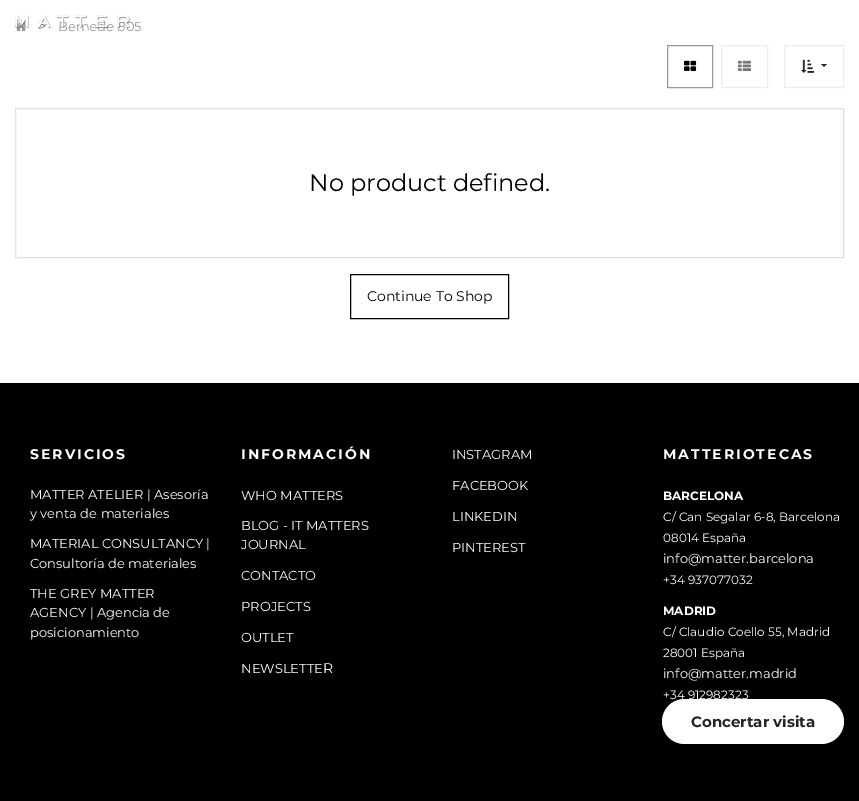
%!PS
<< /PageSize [859 801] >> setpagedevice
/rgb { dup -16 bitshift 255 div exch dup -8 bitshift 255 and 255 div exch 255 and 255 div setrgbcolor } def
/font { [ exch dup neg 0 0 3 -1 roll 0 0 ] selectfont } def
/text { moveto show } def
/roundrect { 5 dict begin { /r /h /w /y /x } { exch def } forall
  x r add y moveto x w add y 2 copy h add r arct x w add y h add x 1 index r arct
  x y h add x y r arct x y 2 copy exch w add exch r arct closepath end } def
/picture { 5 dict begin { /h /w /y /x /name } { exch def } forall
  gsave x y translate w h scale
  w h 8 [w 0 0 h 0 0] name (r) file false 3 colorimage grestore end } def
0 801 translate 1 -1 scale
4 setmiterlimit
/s1 { /Montserrat-Regular 14 font 16#6C757D rgb } def
/s2 { /Montserrat-Regular 13 font 16#969696 rgb } def
/s3 { /Montserrat-Regular 24 font 16#000000 rgb } def
/s4 { /Montserrat-Regular 14 font 16#000000 rgb } def
/s5 { /Montserrat-Regular 13 font 16#FFFFFF rgb } def
/s6 { /Montserrat-Regular 14 font 16#FFFFFF rgb } def
/s7 { /Montserrat-Bold 12 font 16#FFFFFF rgb } def
/s8 { /Montserrat-Regular 12 font 16#FFFFFF rgb } def
/s9 { /Montserrat-Bold 15 font 16#212529 rgb } def
16#FFFFFF rgb
0 0 859 801 rectfill
(pic2.raw) 15 21 12 10 picture
s1
(>) 38 31 text
s2
(Bemede 805) 58 31 text
(pic1.raw) 15 15 116 13 picture
16#999999 rgb
667.5 45.5 45 42 rectstroke
(pic3.raw) 684 60 13 11 picture
16#EDEDED rgb
721.5 45.5 46 42 rectstroke
(pic4.raw) 738 60 13 11 picture
784.5 45.5 59 42 rectstroke
(pic5.raw) 801 59 13 14 picture
16#212529 rgb
821 64 moveto 827 64 lineto 824 67 lineto closepath fill
16#E0E0E0 rgb
15.5 108.5 828 149 rectstroke
s3
(No product defined.) 309 191 text
350.5 274.5 158 44 rectstroke
s4
(Continue To Shop) 367 301 text
0 383 859 418 rectfill
/Montserrat-Bold 14 font
16#FFFFFF rgb
30 459 moveto 2 0 (SERVICIOS) ashow
s5
(MATTER ATELIER | Asesoría) 30 499 text
(y venta de materiales) 30 518 text
(MATERIAL CONSULTANCY |) 30 548 text
(Consultoría de materiales) 30 568 text
(THE GREY MATTER) 30 598 text
(AGENCY | Agencia de) 30 617 text
(posicionamiento) 30 637 text
/Montserrat-Bold 14 font
241 459 moveto 2 0 (INFORMACIÓN) ashow
s5
(WHO MATTERS) 241 500 text
(BLOG - IT MATTERS) 241 530 text
(JOURNAL) 241 549 text
(CONTACTO) 241 580 text
(PROJECTS) 241 611 text
(OUTLET) 241 642 text
(NEWSLETTE) 241 673 text
s6
(R) 323 673 text
s5
(INSTAGRAM) 452 459 text
(FACEBOOK) 452 490 text
(LINKEDIN) 452 521 text
(PINTEREST) 452 552 text
/Montserrat-Bold 14 font
663 459 moveto 2 0 (MATTERIOTECAS) ashow
s7
(BARCELONA) 663 500 text
s8
(C/ Can Segalar 6-8, Barcelona) 663 521 text
(08014 España) 663 542 text
s5
(info@matter.barcelona) 663 563 text
s8
(+34 937077032) 663 584 text
s7
(MADRID) 663 615 text
s8
(C/ Claudio Coello 55, Madrid) 663 636 text
(28001 España) 663 657 text
s5
(info@matter.madrid) 663 678 text
s8
(+34 912982323) 663 699 text
662 699 182 45 22.5 roundrect fill
s9
(Concertar visita) 691 727 text
showpage
